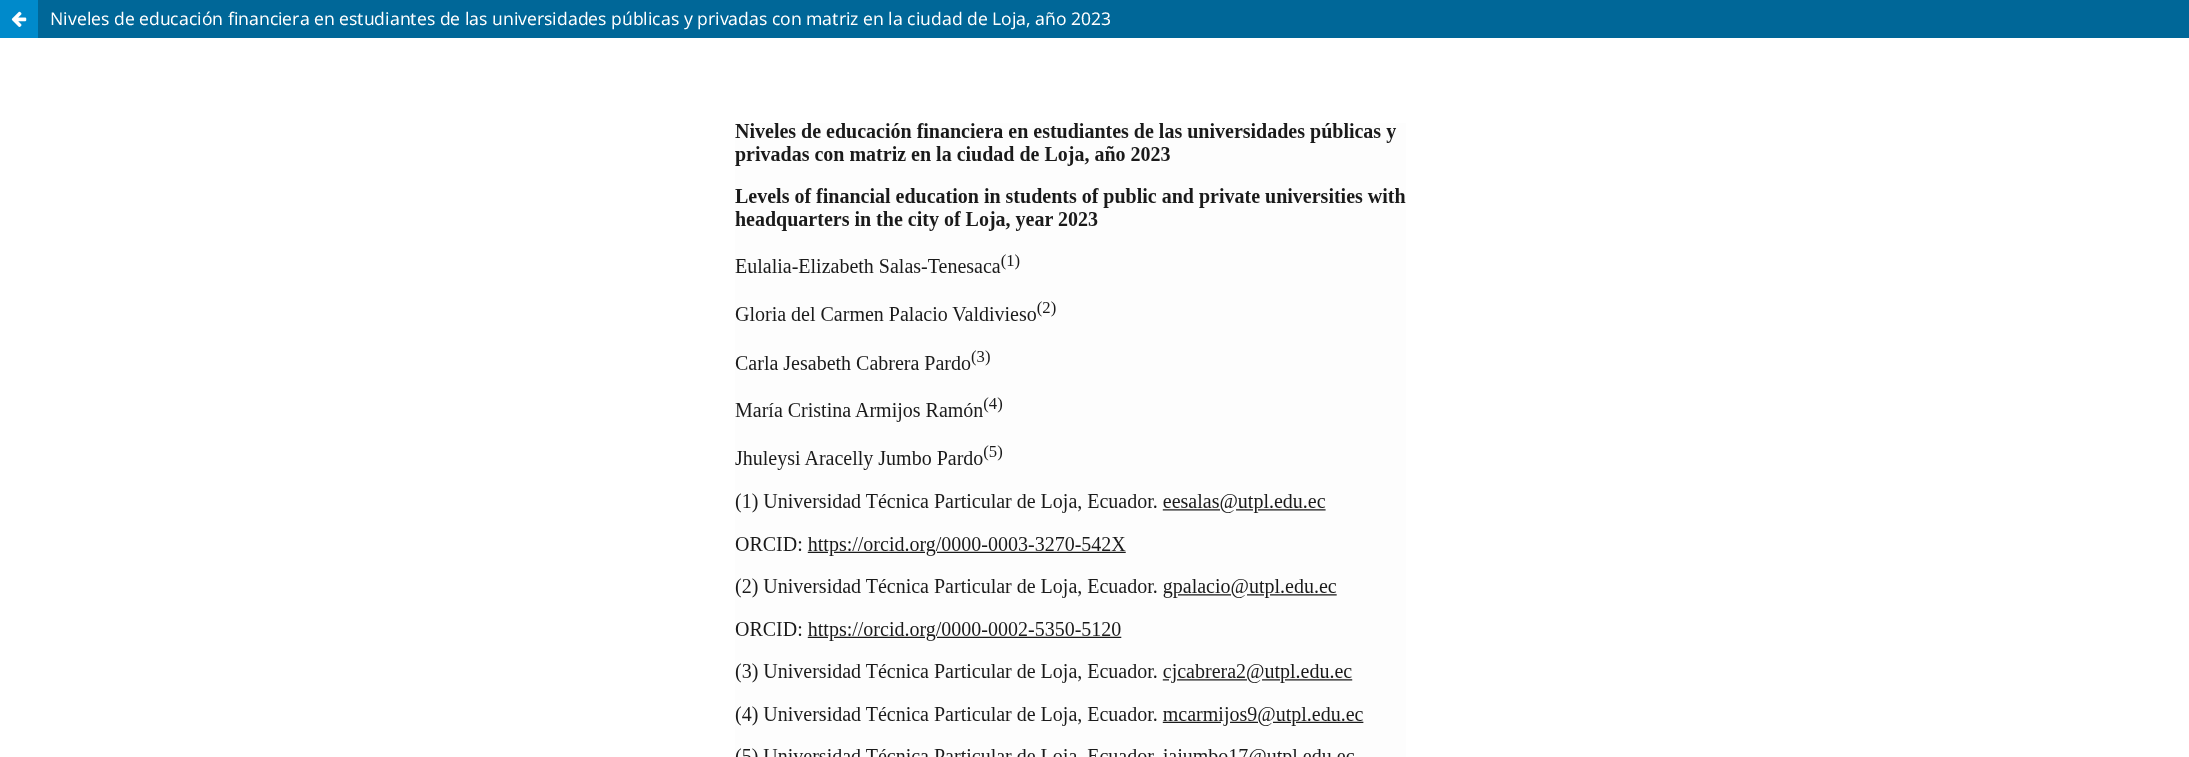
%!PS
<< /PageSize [2189 757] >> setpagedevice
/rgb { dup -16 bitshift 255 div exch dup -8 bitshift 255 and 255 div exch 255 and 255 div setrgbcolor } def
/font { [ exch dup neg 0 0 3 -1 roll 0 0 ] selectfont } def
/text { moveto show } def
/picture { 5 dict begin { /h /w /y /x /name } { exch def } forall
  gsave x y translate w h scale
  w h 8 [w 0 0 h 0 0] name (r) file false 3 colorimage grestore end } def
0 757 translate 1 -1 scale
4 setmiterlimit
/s1 { /NotoSans-Regular 17.5 font 16#FFFFFF rgb } def
16#FFFFFF rgb
0 0 2189 757 rectfill
16#006798 rgb
38 0 2151 38 rectfill
16#008ACB rgb
0 0 38 38 rectfill
(pic1.raw) 11 11 16 16 picture
s1
(Niveles de educación financiera en estudiantes de las universidades públicas y privadas con matriz en la ciudad de Loja, año 2023) 50 25 text
(pic2.raw) 735 123 671 634 picture
showpage
